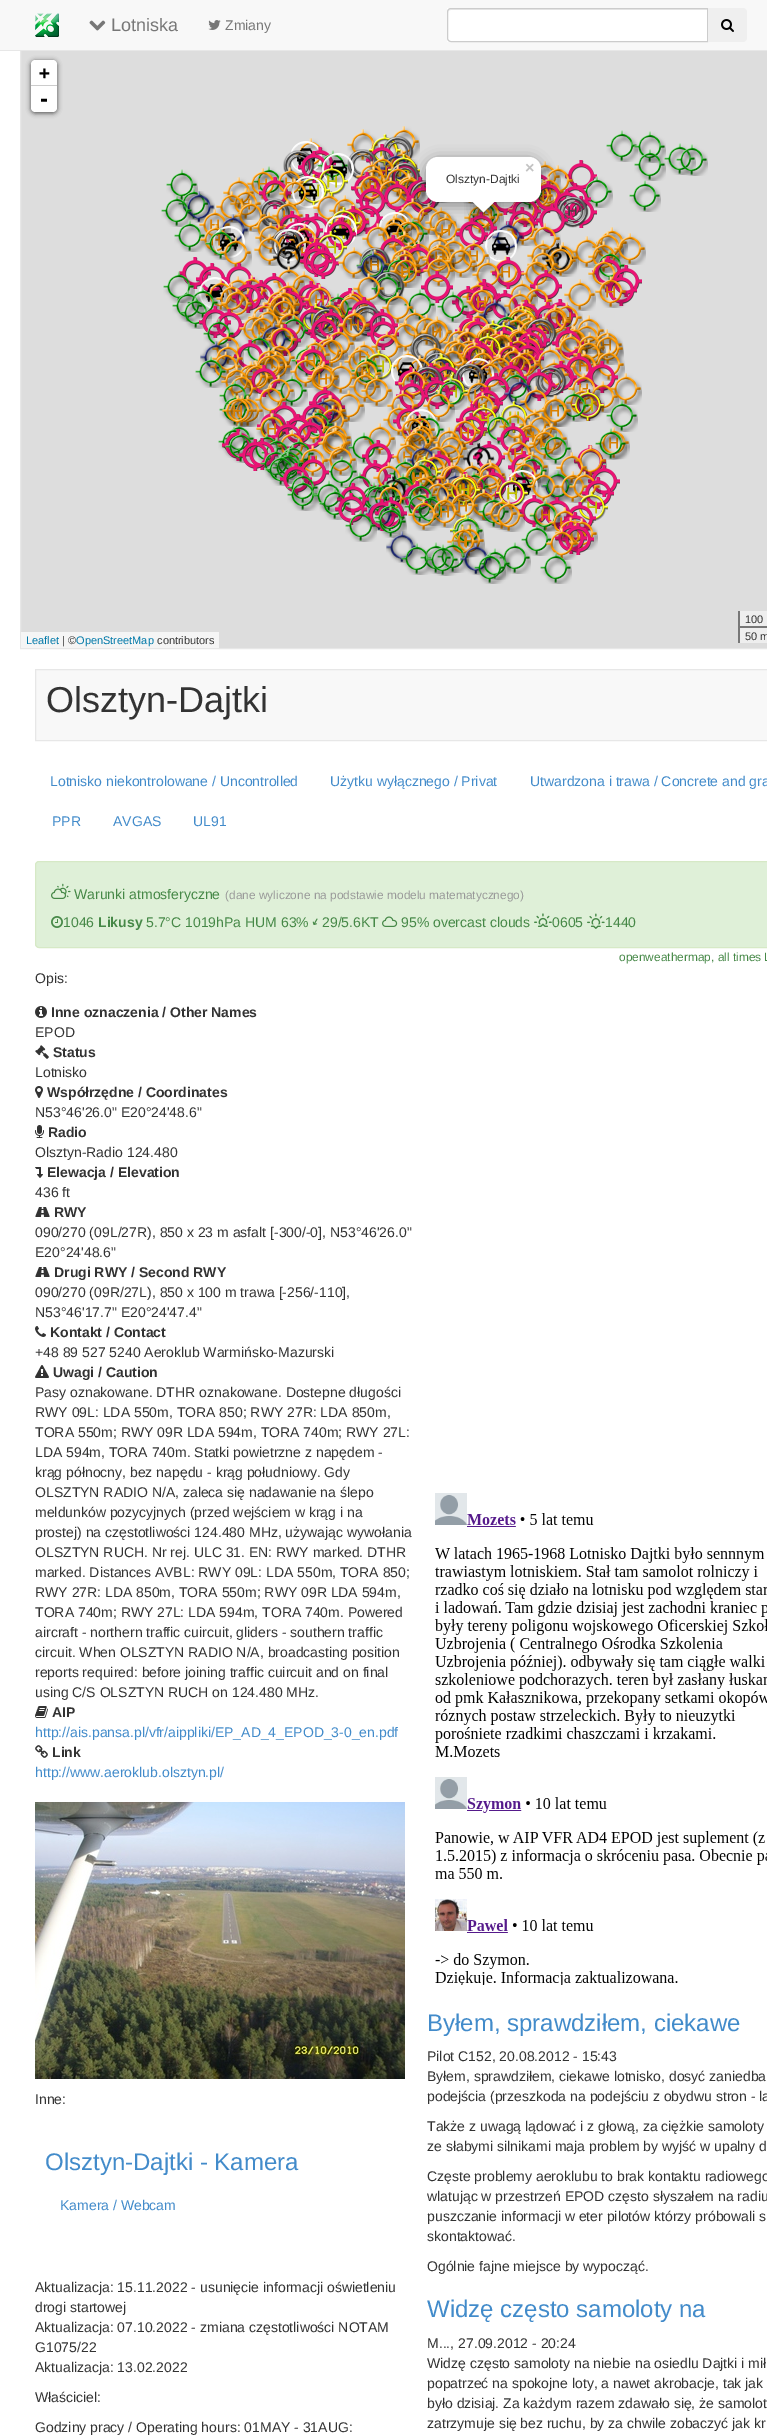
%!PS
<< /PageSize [767 2435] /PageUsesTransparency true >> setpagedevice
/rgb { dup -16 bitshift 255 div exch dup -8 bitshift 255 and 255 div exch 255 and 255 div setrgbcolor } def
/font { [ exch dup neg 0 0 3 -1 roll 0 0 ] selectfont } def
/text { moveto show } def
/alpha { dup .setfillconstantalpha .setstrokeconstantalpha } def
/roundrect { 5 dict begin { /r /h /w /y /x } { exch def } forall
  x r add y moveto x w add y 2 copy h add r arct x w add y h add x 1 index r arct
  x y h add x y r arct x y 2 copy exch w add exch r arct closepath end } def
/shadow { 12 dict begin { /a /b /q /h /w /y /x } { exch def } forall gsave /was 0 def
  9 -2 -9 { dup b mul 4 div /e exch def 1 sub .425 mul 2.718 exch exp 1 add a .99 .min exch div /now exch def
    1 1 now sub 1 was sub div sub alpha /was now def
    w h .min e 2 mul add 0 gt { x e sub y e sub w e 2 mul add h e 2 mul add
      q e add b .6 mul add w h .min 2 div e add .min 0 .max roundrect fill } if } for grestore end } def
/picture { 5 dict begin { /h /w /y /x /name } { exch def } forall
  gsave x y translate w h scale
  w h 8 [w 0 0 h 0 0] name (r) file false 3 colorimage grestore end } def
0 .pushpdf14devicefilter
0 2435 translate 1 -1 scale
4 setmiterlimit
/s1 { /LiberationSans-Regular 18 font 16#777777 rgb } def
/s2 { /LiberationSans-Regular 14 font 16#777777 rgb } def
/s3 { /DejaVuSansMono-Bold 18 font 16#000000 rgb } def
/s4 { /DejaVuSansMono-Bold 20 font 16#000000 rgb } def
/s5 { /LiberationSans-Regular 11 font 16#0078A8 rgb } def
/s6 { /LiberationSans-Regular 11 font 16#333333 rgb } def
/s7 { /LiberationSans-Bold 16 font 16#C3C3C3 rgb } def
/s8 { /LiberationSans-Regular 12 font 16#333333 rgb } def
/s9 { /LiberationSans-Regular 36 font 16#333333 rgb } def
/s10 { /LiberationSans-Regular 14 font 16#428BCA rgb } def
/s11 { /LiberationSans-Regular 14 font 16#468847 rgb } def
/s12 { /LiberationSans-Regular 11.9 font 16#999999 rgb } def
/s13 { /LiberationSans-Bold 14 font 16#468847 rgb } def
/s14 { /LiberationSans-Regular 11.9 font 16#468847 rgb } def
/s15 { /LiberationSans-Regular 14 font 16#333333 rgb } def
/s16 { /LiberationSans-Bold 14 font 16#333333 rgb } def
/s17 { /LiberationSans-Regular 24 font 16#428BCA rgb } def
16#FFFFFF rgb
0 0 767 2435 rectfill
16#DDDDDD rgb
21 51 746 597 rectfill
16#EEEEEE rgb
740 628 27 15 rectfill
16#E7E7E7 rgb
20.5 49.5 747 599 rectstroke
16#F8F8F8 rgb
0 0 767 50 rectfill
16#E7E7E7 rgb
0 50 767 1 rectfill
(pic1.raw) 35 13 24 24 picture
(pic2.raw) 89 20 17 11 picture
s1
(Lotniska) 111 31 text
(pic3.raw) 208 20 13 10 picture
s2
(Zmiany) 225 30 text
16#FFFFFF rgb
447 8 260 34 rectfill
16#ECECEC rgb
451 10 moveto 707 10 lineto 707 9 lineto 451 9 lineto 449 9 448 10 448 12 curveto 448 13 lineto 448 11 449 10 451 10 curveto closepath fill
16#CCCCCC rgb
451 8.5 moveto 707.5 8.5 lineto 707.5 41.5 lineto 451 41.5 lineto 449 41.5 447.5 40 447.5 38 curveto 447.5 12 lineto 447.5 10 449 8.5 451 8.5 curveto closepath stroke
16#EFEFEF rgb
708 8 moveto 743 8 lineto 745 8 747 10 747 12 curveto 747 38 lineto 747 40 745 42 743 42 curveto 708 42 lineto closepath fill
(pic4.raw) 721 19 13 13 picture
16#000000 rgb
31 61 26 52 4 2.5 0.65 shadow
16#FFFFFF rgb
35 60 moveto 53 60 lineto 55 60 57 62 57 64 curveto 57 86 lineto 31 86 lineto 31 64 lineto 31 62 33 60 35 60 curveto closepath fill
16#CCCCCC rgb
31 85 26 1 rectfill
s3
(+) 39 79 text
16#FFFFFF rgb
31 86 moveto 57 86 lineto 57 108 lineto 57 110 55 112 53 112 curveto 35 112 lineto 33 112 31 110 31 108 curveto closepath fill
s4
(-) 38 106 text
16#F5F5F5 rgb
21 632 198 16 rectfill
s5
(Leaflet) 26 644 text
s6
(| ©) 62 644 text
s5
(OpenStreetMap) 76 644 text
s6
(contributors) 157 644 text
16#EEEEEE rgb
740 611 27 15 rectfill
16#777777 rgb
738 611 2 17 rectfill
s6
(100) 745 623 text
16#777777 rgb
738 626 29 2 rectfill
738 626 2 17 rectfill
s6
(50 m) 745 640 text
(pic5.raw) 347 129 32 32 picture
(pic5.raw) 388 126 32 32 picture
(pic6.raw) 369 134 32 32 picture
(pic7.raw) 606 130 32 32 picture
(pic8.raw) 634 131 32 32 picture
(pic5.raw) 295 138 32 32 picture
(pic9.raw) 382 136 32 32 picture
(pic10.raw) 290 141 32 32 picture
(pic11.raw) 366 144 32 32 picture
(pic12.raw) 664 143 32 32 picture
(pic14.raw) 304 147 32 32 picture
(pic13.raw) 283 150 32 32 picture
(pic15.raw) 347 149 32 32 picture
(pic16.raw) 634 149 32 32 picture
(pic17.raw) 676 144 32 32 picture
(pic19.raw) 317 150 32 32 picture
(pic18.raw) 298 151 32 32 picture
(pic20.raw) 386 150 32 32 picture
(pic21.raw) 322 153 32 32 picture
(pic22.raw) 380 152 32 32 picture
(pic24.raw) 388 154 32 32 picture
(pic23.raw) 367 155 32 32 picture
(pic25.raw) 565 160 32 32 picture
(pic26.raw) 356 161 32 32 picture
(pic27.raw) 389 162 32 32 picture
(pic28.raw) 540 161 21 32 picture
(pic29.raw) 316 165 32 32 picture
(pic30.raw) 389 162 32 32 picture
(pic31.raw) 253 166 32 32 picture
(pic32.raw) 275 167 31 32 picture
(pic34.raw) 382 165 32 32 picture
(pic33.raw) 359 166 31 32 picture
(pic35.raw) 542 165 32 32 picture
(pic7.raw) 166 169 32 32 picture
(pic36.raw) 247 168 32 32 picture
(pic37.raw) 351 172 32 32 picture
(pic38.raw) 298 174 32 32 picture
(pic39.raw) 356 172 32 32 picture
(pic60.raw) 424 184 2 2 picture
(pic63.raw) 424 185 26 18 picture
(pic40.raw) 393 173 32 32 picture
(pic41.raw) 534 174 20 29 picture
(pic42.raw) 223 177 32 32 picture
(pic43.raw) 259 177 32 32 picture
(pic44.raw) 292 176 32 32 picture
(pic46.raw) 394 175 32 32 picture
(pic50.raw) 404 177 28 32 picture
(pic45.raw) 375 177 32 32 picture
(pic47.raw) 538 176 27 32 picture
(pic48.raw) 581 176 32 32 picture
(pic49.raw) 279 178 32 32 picture
(pic64.raw) 519 186 27 24 picture
(pic51.raw) 533 179 30 32 picture
(pic53.raw) 410 180 30 32 picture
(pic52.raw) 381 181 31 32 picture
(pic57.raw) 524 182 30 30 picture
(pic54.raw) 535 181 28 32 picture
(pic55.raw) 629 180 32 32 picture
(pic56.raw) 407 184 32 32 picture
(pic58.raw) 559 183 32 32 picture
(pic59.raw) 356 185 32 32 picture
(pic61.raw) 178 188 32 32 picture
(pic62.raw) 230 188 32 32 picture
(pic65.raw) 551 189 32 32 picture
(pic67.raw) 183 191 32 32 picture
(pic66.raw) 161 195 32 32 picture
(pic68.raw) 216 191 32 32 picture
(pic69.raw) 313 192 32 32 picture
(pic70.raw) 329 195 32 32 picture
(pic75.raw) 565 196 32 32 picture
(pic71.raw) 557 196 32 32 picture
(pic73.raw) 259 198 32 32 picture
(pic72.raw) 235 200 32 32 picture
(pic74.raw) 397 198 32 32 picture
(pic76.raw) 272 200 32 32 picture
(pic82.raw) 492 202 26 13 picture
(pic77.raw) 508 200 32 26 picture
(pic78.raw) 351 202 32 32 picture
(pic79.raw) 413 203 32 32 picture
(pic80.raw) 463 202 12 2 picture
(pic87.raw) 468 205 32 26 picture
(pic81.raw) 472 202 32 29 picture
(pic83.raw) 509 201 32 26 picture
(pic84.raw) 338 204 32 32 picture
(pic85.raw) 536 204 32 32 picture
(pic86.raw) 335 205 32 32 picture
(pic88.raw) 337 206 32 32 picture
(pic89.raw) 464 206 32 28 picture
(pic90.raw) 199 209 32 32 picture
(pic92.raw) 276 211 32 32 picture
(pic91.raw) 253 212 32 32 picture
(pic93.raw) 328 207 32 32 picture
(pic94.raw) 387 207 32 32 picture
(pic95.raw) 425 207 32 32 picture
(pic96.raw) 506 207 32 32 picture
(pic97.raw) 217 214 32 32 picture
(pic98.raw) 300 213 32 30 picture
(pic99.raw) 379 212 32 32 picture
(pic100.raw) 465 212 32 32 picture
(pic101.raw) 291 214 32 32 picture
(pic102.raw) 325 215 32 32 picture
(pic103.raw) 380 214 32 32 picture
(pic104.raw) 430 214 32 32 picture
(pic105.raw) 507 214 32 32 picture
(pic106.raw) 324 218 32 32 picture
(pic112.raw) 398 218 31 32 picture
(pic107.raw) 392 218 32 32 picture
(pic108.raw) 174 220 32 32 picture
(pic110.raw) 280 219 32 32 picture
(pic109.raw) 255 222 32 32 picture
(pic111.raw) 378 219 32 32 picture
(pic113.raw) 456 218 32 32 picture
(pic114.raw) 492 221 32 32 picture
(pic115.raw) 200 224 32 32 picture
(pic116.raw) 284 223 32 32 picture
(pic117.raw) 362 223 32 32 picture
(pic118.raw) 529 223 32 32 picture
(pic119.raw) 213 226 32 32 picture
(pic120.raw) 289 224 32 32 picture
(pic5.raw) 596 227 32 32 picture
(pic121.raw) 205 228 32 32 picture
(pic122.raw) 271 228 32 32 picture
(pic124.raw) 274 229 32 32 picture
(pic123.raw) 254 234 32 32 picture
(pic125.raw) 317 231 30 32 picture
(pic126.raw) 389 231 32 32 picture
(pic127.raw) 485 230 32 32 picture
(pic128.raw) 592 231 32 32 picture
(pic129.raw) 614 233 32 32 picture
(pic130.raw) 220 237 32 32 picture
(pic131.raw) 290 237 32 32 picture
(pic132.raw) 377 235 32 32 picture
(pic133.raw) 424 235 31 32 picture
(pic134.raw) 571 236 32 32 picture
(pic135.raw) 301 239 32 32 picture
(pic136.raw) 403 240 32 32 picture
(pic137.raw) 438 237 32 32 picture
(pic138.raw) 458 240 32 32 picture
(pic139.raw) 527 240 32 32 picture
(pic140.raw) 273 242 32 32 picture
(pic142.raw) 424 241 32 32 picture
(pic141.raw) 393 242 32 32 picture
(pic143.raw) 547 242 32 32 picture
(pic144.raw) 588 241 32 32 picture
(pic145.raw) 300 245 32 32 picture
(pic146.raw) 402 244 32 32 picture
(pic147.raw) 422 244 32 32 picture
(pic148.raw) 542 243 32 32 picture
(pic149.raw) 307 247 32 32 picture
(pic150.raw) 338 247 32 32 picture
(pic152.raw) 388 246 31 32 picture
(pic151.raw) 359 247 32 32 picture
(pic153.raw) 445 246 32 32 picture
(pic154.raw) 545 245 32 32 picture
(pic155.raw) 359 249 32 32 picture
(pic156.raw) 527 249 32 32 picture
(pic157.raw) 356 250 32 32 picture
(pic158.raw) 389 250 32 32 picture
(pic159.raw) 594 250 32 32 picture
(pic160.raw) 357 251 32 32 picture
(pic161.raw) 383 256 32 32 picture
(pic162.raw) 423 255 32 32 picture
(pic163.raw) 179 257 32 32 picture
(pic164.raw) 390 256 32 32 picture
(pic165.raw) 490 256 32 32 picture
(pic166.raw) 592 256 32 32 picture
(pic167.raw) 196 263 31 30 picture
(pic168.raw) 223 263 32 32 picture
(pic169.raw) 273 266 32 32 picture
(pic171.raw) 492 257 32 32 picture
(pic170.raw) 472 259 32 32 picture
(pic172.raw) 521 258 32 32 picture
(pic173.raw) 588 258 32 32 picture
(pic174.raw) 610 265 32 32 picture
(pic175.raw) 163 271 32 32 picture
(pic177.raw) 288 271 32 32 picture
(pic176.raw) 258 273 31 31 picture
(pic179.raw) 373 271 32 32 picture
(pic183.raw) 371 273 32 32 picture
(pic178.raw) 353 273 32 32 picture
(pic180.raw) 421 271 32 32 picture
(pic181.raw) 530 270 32 32 picture
(pic182.raw) 237 275 31 32 picture
(pic184.raw) 605 274 32 32 picture
(pic186.raw) 222 276 32 32 picture
(pic185.raw) 199 277 32 32 picture
(pic187.raw) 595 276 32 32 picture
(pic188.raw) 205 279 32 32 picture
(pic189.raw) 245 280 32 32 picture
(pic190.raw) 468 279 32 30 picture
(pic191.raw) 507 280 31 32 picture
(pic192.raw) 564 279 32 32 picture
(pic193.raw) 232 281 32 32 picture
(pic195.raw) 295 281 32 32 picture
(pic194.raw) 272 282 32 32 picture
(pic196.raw) 462 281 32 32 picture
(pic197.raw) 216 283 32 32 picture
(pic198.raw) 302 283 32 31 picture
(pic199.raw) 469 283 32 32 picture
(pic200.raw) 304 284 32 32 picture
(pic201.raw) 452 286 32 32 picture
(pic202.raw) 521 285 32 32 picture
(pic203.raw) 187 287 32 32 picture
(pic204.raw) 221 288 32 32 picture
(pic207.raw) 276 288 30 32 picture
(pic205.raw) 263 288 32 32 picture
(pic206.raw) 466 286 32 32 picture
(pic208.raw) 334 288 32 32 picture
(pic212.raw) 269 289 32 32 picture
(pic209.raw) 268 289 32 32 picture
(pic210.raw) 334 288 32 32 picture
(pic211.raw) 172 290 32 32 picture
(pic213.raw) 337 290 32 32 picture
(pic214.raw) 404 289 32 32 picture
(pic215.raw) 489 290 32 32 picture
(pic216.raw) 265 292 32 32 picture
(pic217.raw) 322 293 32 32 picture
(pic218.raw) 382 292 32 32 picture
(pic219.raw) 437 291 32 32 picture
(pic220.raw) 504 290 32 32 picture
(pic221.raw) 180 297 32 32 picture
(pic222.raw) 268 297 32 32 picture
(pic223.raw) 335 293 32 32 picture
(pic230.raw) 316 301 31 32 picture
(pic224.raw) 314 301 32 32 picture
(pic225.raw) 348 297 32 32 picture
(pic226.raw) 479 299 32 32 picture
(pic227.raw) 510 300 32 31 picture
(pic228.raw) 544 299 32 32 picture
(pic229.raw) 248 302 32 32 picture
(pic231.raw) 305 302 32 32 picture
(pic233.raw) 532 302 31 32 picture
(pic232.raw) 506 302 32 32 picture
(pic234.raw) 551 302 32 32 picture
(pic235.raw) 199 306 32 32 picture
(pic236.raw) 300 303 32 32 picture
(pic237.raw) 351 305 32 32 picture
(pic238.raw) 540 304 32 32 picture
(pic239.raw) 296 306 32 32 picture
(pic244.raw) 507 306 32 30 picture
(pic240.raw) 503 306 32 32 picture
(pic241.raw) 213 309 32 32 picture
(pic242.raw) 252 308 32 32 picture
(pic243.raw) 311 308 32 32 picture
(pic245.raw) 539 306 32 32 picture
(pic246.raw) 274 310 32 32 picture
(pic247.raw) 315 309 32 32 picture
(pic249.raw) 366 309 32 32 picture
(pic248.raw) 339 309 32 32 picture
(pic250.raw) 399 309 32 32 picture
(pic251.raw) 510 309 32 32 picture
(pic252.raw) 239 313 32 32 picture
(pic253.raw) 338 310 32 32 picture
(pic254.raw) 462 312 32 32 picture
(pic255.raw) 491 313 32 32 picture
(pic256.raw) 247 314 32 32 picture
(pic257.raw) 279 315 31 32 picture
(pic258.raw) 308 315 32 32 picture
(pic259.raw) 411 314 32 32 picture
(pic260.raw) 455 315 32 32 picture
(pic261.raw) 513 314 32 32 picture
(pic262.raw) 574 315 31 32 picture
(pic263.raw) 421 316 32 32 picture
(pic264.raw) 501 316 31 32 picture
(pic265.raw) 421 317 32 32 picture
(pic266.raw) 458 317 31 32 picture
(pic267.raw) 501 316 31 32 picture
(pic268.raw) 203 318 32 32 picture
(pic269.raw) 367 318 32 32 picture
(pic270.raw) 462 318 32 32 picture
(pic271.raw) 516 317 32 32 picture
(pic272.raw) 390 320 32 32 picture
(pic273.raw) 477 320 31 32 picture
(pic274.raw) 493 321 32 31 picture
(pic275.raw) 525 318 32 32 picture
(pic276.raw) 258 323 32 32 picture
(pic277.raw) 488 322 32 30 picture
(pic278.raw) 571 322 32 32 picture
(pic280.raw) 269 324 32 32 picture
(pic279.raw) 266 324 32 32 picture
(pic281.raw) 471 324 32 32 picture
(pic282.raw) 473 324 32 32 picture
(pic283.raw) 518 324 32 31 picture
(pic284.raw) 503 325 32 32 picture
(pic285.raw) 558 325 31 32 picture
(pic286.raw) 443 327 32 32 picture
(pic287.raw) 488 327 30 32 picture
(pic288.raw) 559 326 32 32 picture
(pic292.raw) 506 327 31 32 picture
(pic289.raw) 503 327 32 32 picture
(pic290.raw) 323 328 32 32 picture
(pic291.raw) 451 328 32 32 picture
(pic293.raw) 552 327 32 31 picture
(pic294.raw) 371 331 32 32 picture
(pic295.raw) 452 328 32 32 picture
(pic296.raw) 481 330 31 32 picture
(pic297.raw) 514 329 32 32 picture
(pic298.raw) 591 329 32 32 picture
(pic299.raw) 486 331 32 32 picture
(pic300.raw) 212 333 32 32 picture
(pic301.raw) 410 333 32 32 picture
(pic302.raw) 486 331 32 32 picture
(pic303.raw) 574 332 32 32 picture
(pic304.raw) 243 334 32 32 picture
(pic305.raw) 313 335 31 32 picture
(pic306.raw) 472 333 32 32 picture
(pic307.raw) 514 334 31 32 picture
(pic308.raw) 555 333 32 32 picture
(pic309.raw) 592 333 32 32 picture
(pic310.raw) 317 336 31 32 picture
(pic311.raw) 439 337 32 32 picture
(pic312.raw) 511 336 32 32 picture
(pic313.raw) 453 337 32 32 picture
(pic314.raw) 503 337 31 32 picture
(pic315.raw) 299 339 32 32 picture
(pic317.raw) 461 338 32 32 picture
(pic316.raw) 444 339 31 32 picture
(pic318.raw) 200 341 32 32 picture
(pic319.raw) 234 340 32 32 picture
(pic320.raw) 348 341 32 32 picture
(pic321.raw) 458 339 32 32 picture
(pic322.raw) 573 339 32 32 picture
(pic323.raw) 264 342 32 32 picture
(pic324.raw) 465 341 31 32 picture
(pic325.raw) 459 342 32 32 picture
(pic330.raw) 495 342 32 32 picture
(pic331.raw) 512 342 32 32 picture
(pic326.raw) 493 342 32 32 picture
(pic327.raw) 212 343 32 32 picture
(pic328.raw) 291 345 32 32 picture
(pic329.raw) 419 344 32 32 picture
(pic332.raw) 295 345 32 32 picture
(pic337.raw) 259 347 31 32 picture
(pic333.raw) 253 347 32 32 picture
(pic334.raw) 297 346 32 32 picture
(pic335.raw) 344 346 32 32 picture
(pic336.raw) 535 346 31 32 picture
(pic338.raw) 437 347 32 32 picture
(pic340.raw) 498 347 32 32 picture
(pic339.raw) 467 349 32 32 picture
(pic341.raw) 210 351 32 32 picture
(pic342.raw) 261 351 31 32 picture
(pic343.raw) 363 350 32 32 picture
(pic344.raw) 392 350 32 32 picture
(pic345.raw) 509 349 32 32 picture
(pic347.raw) 593 349 32 32 picture
(pic346.raw) 569 350 31 32 picture
(pic348.raw) 253 352 32 32 picture
(pic349.raw) 422 352 32 30 picture
(pic350.raw) 504 352 32 32 picture
(pic351.raw) 569 351 32 32 picture
(pic352.raw) 425 353 32 30 picture
(pic353.raw) 563 353 32 32 picture
(pic354.raw) 421 354 32 32 picture
(pic355.raw) 351 355 32 32 picture
(pic357.raw) 426 354 32 32 picture
(pic363.raw) 404 355 32 32 picture
(pic356.raw) 391 355 32 32 picture
(pic358.raw) 484 354 32 32 picture
(pic359.raw) 195 356 32 32 picture
(pic360.raw) 241 360 31 32 picture
(pic361.raw) 290 356 32 32 picture
(pic362.raw) 350 358 32 32 picture
(pic364.raw) 422 360 29 32 picture
(pic365.raw) 462 358 32 32 picture
(pic366.raw) 539 359 31 32 picture
(pic367.raw) 235 361 32 32 picture
(pic368.raw) 308 361 32 32 picture
(pic369.raw) 474 360 32 32 picture
(pic370.raw) 545 361 32 32 picture
(pic371.raw) 586 361 32 32 picture
(pic372.raw) 241 362 32 32 picture
(pic374.raw) 325 362 32 32 picture
(pic373.raw) 307 363 32 32 picture
(pic375.raw) 415 363 32 32 picture
(pic376.raw) 495 362 32 32 picture
(pic378.raw) 248 365 32 32 picture
(pic377.raw) 221 366 32 32 picture
(pic381.raw) 431 363 32 32 picture
(pic380.raw) 412 366 32 32 picture
(pic379.raw) 395 367 32 32 picture
(pic382.raw) 454 363 32 32 picture
(pic383.raw) 535 366 32 32 picture
(pic384.raw) 226 373 32 32 picture
(pic393.raw) 276 375 32 32 picture
(pic385.raw) 263 375 32 32 picture
(pic386.raw) 349 371 32 32 picture
(pic387.raw) 398 368 32 32 picture
(pic390.raw) 523 369 32 32 picture
(pic389.raw) 500 371 32 32 picture
(pic388.raw) 480 373 32 32 picture
(pic391.raw) 568 373 32 32 picture
(pic392.raw) 610 373 32 32 picture
(pic394.raw) 361 375 32 32 picture
(pic395.raw) 436 375 32 32 picture
(pic396.raw) 421 377 32 32 picture
(pic397.raw) 219 380 32 32 picture
(pic398.raw) 255 384 32 32 picture
(pic399.raw) 396 380 32 30 picture
(pic400.raw) 435 378 32 32 picture
(pic401.raw) 463 379 32 32 picture
(pic402.raw) 504 378 32 32 picture
(pic403.raw) 587 381 32 32 picture
(pic404.raw) 309 387 32 29 picture
(pic405.raw) 471 387 32 32 picture
(pic406.raw) 520 386 32 32 picture
(pic407.raw) 566 387 32 32 picture
(pic413.raw) 573 389 32 32 picture
(pic408.raw) 572 389 32 32 picture
(pic409.raw) 572 389 32 32 picture
(pic410.raw) 333 390 32 32 picture
(pic411.raw) 387 390 32 32 picture
(pic412.raw) 423 390 32 32 picture
(pic414.raw) 219 394 32 32 picture
(pic415.raw) 313 391 32 32 picture
(pic416.raw) 467 392 32 32 picture
(pic417.raw) 558 390 32 32 picture
(pic420.raw) 232 395 32 32 picture
(pic419.raw) 226 395 32 32 picture
(pic418.raw) 222 395 32 32 picture
(pic421.raw) 314 395 32 32 picture
(pic422.raw) 315 395 32 32 picture
(pic425.raw) 540 395 32 32 picture
(pic423.raw) 539 395 32 32 picture
(pic424.raw) 307 398 32 32 picture
(pic426.raw) 606 400 32 32 picture
(pic428.raw) 299 401 32 32 picture
(pic427.raw) 268 402 32 32 picture
(pic429.raw) 383 404 32 32 picture
(pic430.raw) 456 404 32 32 picture
(pic431.raw) 498 401 32 32 picture
(pic432.raw) 317 405 32 32 picture
(pic433.raw) 393 405 32 32 picture
(pic434.raw) 468 404 32 32 picture
(pic435.raw) 257 410 32 32 picture
(pic436.raw) 302 409 32 32 picture
(pic437.raw) 405 409 32 32 picture
(pic439.raw) 519 409 32 32 picture
(pic438.raw) 499 411 32 32 picture
(pic442.raw) 257 413 32 32 picture
(pic440.raw) 256 413 32 32 picture
(pic441.raw) 298 412 32 32 picture
(pic443.raw) 282 414 32 32 picture
(pic448.raw) 413 414 32 32 picture
(pic444.raw) 404 414 32 32 picture
(pic446.raw) 483 413 32 32 picture
(pic445.raw) 455 413 32 32 picture
(pic447.raw) 525 413 32 32 picture
(pic450.raw) 294 419 32 32 picture
(pic449.raw) 272 421 32 32 picture
(pic451.raw) 320 422 32 32 picture
(pic452.raw) 397 415 32 32 picture
(pic453.raw) 449 417 32 32 picture
(pic454.raw) 514 421 32 32 picture
(pic455.raw) 223 423 32 32 picture
(pic456.raw) 364 423 32 32 picture
(pic457.raw) 406 422 32 32 picture
(pic458.raw) 497 423 32 32 picture
(pic459.raw) 536 423 32 32 picture
(pic460.raw) 218 426 32 32 picture
(pic461.raw) 320 427 32 32 picture
(pic462.raw) 404 425 32 32 picture
(pic463.raw) 433 427 32 32 picture
(pic464.raw) 598 427 32 32 picture
(pic465.raw) 222 429 30 32 picture
(pic466.raw) 277 430 31 32 picture
(pic467.raw) 318 428 32 32 picture
(pic468.raw) 400 429 32 32 picture
(pic469.raw) 529 428 32 32 picture
(pic470.raw) 595 428 32 32 picture
(pic471.raw) 225 431 32 32 picture
(pic472.raw) 251 433 32 32 picture
(pic473.raw) 348 432 32 32 picture
(pic474.raw) 436 433 32 32 picture
(pic475.raw) 540 433 32 32 picture
(pic476.raw) 261 437 32 32 picture
(pic477.raw) 246 438 32 32 picture
(pic478.raw) 283 438 32 32 picture
(pic479.raw) 503 438 32 32 picture
(pic480.raw) 239 439 32 32 picture
(pic481.raw) 362 440 32 32 picture
(pic482.raw) 392 441 32 32 picture
(pic483.raw) 434 441 31 32 picture
(pic484.raw) 473 441 32 32 picture
(pic485.raw) 277 444 32 32 picture
(pic486.raw) 325 444 32 32 picture
(pic487.raw) 421 443 32 32 picture
(pic488.raw) 463 443 32 31 picture
(pic489.raw) 297 445 32 32 picture
(pic490.raw) 407 444 32 32 picture
(pic491.raw) 574 445 32 32 picture
(pic492.raw) 260 448 32 32 picture
(pic493.raw) 575 445 32 32 picture
(pic494.raw) 273 448 32 32 picture
(pic495.raw) 424 451 31 32 picture
(pic496.raw) 508 451 32 32 picture
(pic497.raw) 272 452 32 32 picture
(pic498.raw) 418 453 32 32 picture
(pic499.raw) 517 451 32 32 picture
(pic500.raw) 556 452 32 32 picture
(pic501.raw) 265 454 32 32 picture
(pic503.raw) 326 456 32 32 picture
(pic502.raw) 297 456 32 32 picture
(pic506.raw) 409 456 32 32 picture
(pic505.raw) 389 458 32 32 picture
(pic504.raw) 359 460 32 32 picture
(pic507.raw) 474 459 32 32 picture
(pic508.raw) 516 455 32 32 picture
(pic509.raw) 373 462 32 32 picture
(pic510.raw) 405 461 32 32 picture
(pic511.raw) 509 460 32 32 picture
(pic513.raw) 402 462 32 32 picture
(pic512.raw) 401 462 32 32 picture
(pic517.raw) 456 462 32 32 picture
(pic514.raw) 436 462 32 32 picture
(pic515.raw) 280 463 32 32 picture
(pic516.raw) 439 462 32 32 picture
(pic518.raw) 475 462 32 32 picture
(pic519.raw) 588 465 32 32 picture
(pic520.raw) 478 469 31 32 picture
(pic521.raw) 506 470 32 32 picture
(pic522.raw) 541 470 32 32 picture
(pic525.raw) 458 471 32 32 picture
(pic526.raw) 472 471 32 32 picture
(pic523.raw) 451 471 31 32 picture
(pic524.raw) 542 470 32 32 picture
(pic528.raw) 557 471 32 32 picture
(pic527.raw) 528 471 32 32 picture
(pic529.raw) 287 472 32 32 picture
(pic530.raw) 344 472 32 32 picture
(pic531.raw) 439 472 31 32 picture
(pic532.raw) 569 471 32 32 picture
(pic533.raw) 387 473 32 32 picture
(pic534.raw) 449 472 32 32 picture
(pic535.raw) 445 473 32 32 picture
(pic536.raw) 409 474 31 32 picture
(pic537.raw) 451 473 32 32 picture
(pic538.raw) 378 476 32 32 picture
(pic539.raw) 448 474 32 31 picture
(pic540.raw) 495 477 32 32 picture
(pic541.raw) 287 479 32 32 picture
(pic542.raw) 313 480 32 32 picture
(pic543.raw) 432 479 32 32 picture
(pic544.raw) 496 477 32 32 picture
(pic545.raw) 582 477 32 32 picture
(pic546.raw) 370 481 32 32 picture
(pic548.raw) 422 480 32 32 picture
(pic547.raw) 401 481 32 32 picture
(pic550.raw) 358 482 32 32 picture
(pic552.raw) 362 483 32 32 picture
(pic549.raw) 337 483 32 32 picture
(pic551.raw) 405 482 32 32 picture
(pic553.raw) 319 488 32 32 picture
(pic554.raw) 375 483 32 32 picture
(pic555.raw) 468 489 32 32 picture
(pic556.raw) 335 493 32 32 picture
(pic557.raw) 404 491 32 32 picture
(pic559.raw) 468 489 32 32 picture
(pic558.raw) 447 490 32 32 picture
(pic560.raw) 576 491 32 32 picture
(pic561.raw) 414 494 32 32 picture
(pic562.raw) 518 495 32 32 picture
(pic563.raw) 375 497 32 32 picture
(pic564.raw) 429 496 32 32 picture
(pic565.raw) 478 496 32 32 picture
(pic566.raw) 541 497 32 32 picture
(pic567.raw) 363 499 32 32 picture
(pic568.raw) 486 498 32 32 picture
(pic569.raw) 366 499 32 32 picture
(pic570.raw) 408 499 32 32 picture
(pic571.raw) 493 500 32 32 picture
(pic572.raw) 530 499 32 32 picture
(pic573.raw) 374 502 32 32 picture
(pic574.raw) 529 500 32 32 picture
(pic575.raw) 564 502 32 30 picture
(pic577.raw) 375 506 32 32 picture
(pic576.raw) 345 510 32 32 picture
(pic578.raw) 549 507 32 32 picture
(pic579.raw) 450 514 32 32 picture
(pic580.raw) 559 512 32 32 picture
(pic581.raw) 452 515 32 32 picture
(pic582.raw) 555 517 32 32 picture
(pic583.raw) 566 518 32 32 picture
(pic584.raw) 555 522 32 32 picture
(pic585.raw) 453 525 32 32 picture
(pic586.raw) 521 524 32 32 picture
(pic587.raw) 562 523 32 32 picture
(pic588.raw) 386 531 32 32 picture
(pic589.raw) 447 526 32 32 picture
(pic590.raw) 546 528 32 32 picture
(pic593.raw) 437 541 32 32 picture
(pic592.raw) 420 542 32 32 picture
(pic591.raw) 401 543 32 32 picture
(pic594.raw) 460 543 32 32 picture
(pic595.raw) 499 542 32 32 picture
(pic596.raw) 427 544 32 32 picture
(pic597.raw) 479 548 32 32 picture
(pic598.raw) 474 552 32 32 picture
(pic599.raw) 540 552 32 32 picture
16#000000 rgb
426 160 115 45 12 7 0.4 shadow
16#FFFFFF rgb
426 157 115 45 12 roundrect fill
s7
(×) 525 173 text
gsave
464 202 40 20 rectclip
16#000000 rgb
475 195 17 17 0 7 0.4 shadow
grestore
gsave
464 202 40 20 rectclip
16#FFFFFF rgb
483.5 188.5 moveto 495.5 200.5 lineto 483.5 212.5 lineto 471.5 200.5 lineto closepath fill
grestore
s8
(Olsztyn-Dajtki) 446 183 text
16#F8F8F8 rgb
35.5 669.5 moveto 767.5 669.5 lineto 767.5 740.5 lineto 35.5 740.5 lineto closepath gsave fill grestore
16#E7E7E7 rgb
stroke
s9
(Olsztyn-Dajtki) 46 712 text
s10
(Lotnisko niekontrolowane / Uncontrolled) 50 786 text
(Użytku wyłącznego / Privat) 330 786 text
(Utwardzona i trawa / Concrete and gra) 530 786 text
(PPR) 52 826 text
(AVGAS) 113 826 text
(UL91) 193 826 text
16#DFF0D8 rgb
35.5 861.5 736 86 3.5 roundrect gsave fill grestore
16#D6E9C6 rgb
stroke
(pic600.raw) 51 883 20 16 picture
s11
(Warunki atmosferyczne) 74 899 text
s12
(\(dane wyliczone na podstawie modelu matematycznego\)) 225 899 text
(pic601.raw) 51 916 12 12 picture
s11
(1046) 63 927 text
s13
(Likusy) 98 927 text
s11
(5.7°C 1019hPa HUM 63%) 146 927 text
(pic602.raw) 312 918 6 7 picture
(29/5.6KT) 322 927 text
(pic603.raw) 382 916 16 11 picture
(95% overcast clouds) 401 927 text
(pic604.raw) 534 913 18 14 picture
(0605) 552 927 text
(pic605.raw) 587 913 18 16 picture
(1440) 605 927 text
s14
(openweathermap, all times L) 619 961 text
s15
(Opis:) 35 983 text
(pic606.raw) 35 1006 12 12 picture
s16
(Inne oznaczenia / Other Names) 51 1017 text
s15
(EPOD) 35 1037 text
(pic607.raw) 35 1045 14 14 picture
s16
(Status) 53 1057 text
s15
(Lotnisko) 35 1077 text
(pic608.raw) 35 1086 8 12 picture
s16
(Współrzędne / Coordinates) 47 1097 text
s15
(N53°46'26.0" E20°24'48.6") 35 1117 text
(pic609.raw) 35 1125 9 13 picture
s16
(Radio) 48 1137 text
s15
(Olsztyn-Radio 124.480) 35 1157 text
(pic610.raw) 35 1167 8 11 picture
s16
(Elewacja / Elevation) 47 1177 text
s15
(436 ft) 35 1197 text
(pic611.raw) 35 1207 15 10 picture
s16
(RWY) 54 1217 text
s15
(090/270 \(09L/27R\), 850 x 23 m asfalt [-300/-0], N53°46'26.0") 35 1237 text
(E20°24'48.6") 35 1257 text
(pic611.raw) 35 1267 15 10 picture
s16
(Drugi RWY / Second RWY) 54 1277 text
s15
(090/270 \(09R/27L\), 850 x 100 m trawa [-256/-110],) 35 1297 text
(N53°46'17.7" E20°24'47.4") 35 1317 text
(pic612.raw) 35 1326 11 11 picture
s16
(Kontakt / Contact) 50 1337 text
s15
(+48 89 527 5240 Aeroklub Warmińsko-Mazurski) 35 1357 text
(pic613.raw) 35 1365 14 13 picture
s16
(Uwagi / Caution) 53 1377 text
s15
(Pasy oznakowane. DTHR oznakowane. Dostepne długości) 35 1397 text
(RWY 09L: LDA 550m, TORA 850; RWY 27R: LDA 850m,) 35 1417 text
(TORA 550m; RWY 09R LDA 594m, TORA 740m; RWY 27L:) 35 1437 text
(LDA 594m, TORA 740m. Statki powietrzne z napędem -) 35 1457 text
(krąg północny, bez napędu - krąg południowy. Gdy) 35 1477 text
(OLSZTYN RADIO N/A, zaleca się nadawanie na ślepo) 35 1497 text
(meldunków pozycyjnych \(przed wejściem w krąg i na) 35 1517 text
(prostej\) na częstotliwości 124.480 MHz, używając wywołania) 35 1537 text
(OLSZTYN RUCH. Nr rej. ULC 31. EN: RWY marked. DTHR) 35 1557 text
(marked. Distances AVBL: RWY 09L: LDA 550m, TORA 850;) 35 1577 text
(RWY 27R: LDA 850m, TORA 550m; RWY 09R LDA 594m,) 35 1597 text
(TORA 740m; RWY 27L: LDA 594m, TORA 740m. Powered) 35 1617 text
(aircraft - northern traffic cuircuit, gliders - southern traffic) 35 1637 text
(circuit. When OLSZTYN RADIO N/A, broadcasting position) 35 1657 text
(reports required: before joining traffic cuircuit and on final) 35 1677 text
(using C/S OLSZTYN RUCH on 124.480 MHz.) 35 1697 text
(pic614.raw) 35 1706 13 12 picture
s16
(AIP) 52 1717 text
s10
(http://ais.pansa.pl/vfr/aippliki/EP_AD_4_EPOD_3-0_en.pdf) 35 1737 text
(pic615.raw) 35 1745 13 13 picture
s16
(Link) 52 1757 text
s10
(http://www.aeroklub.olsztyn.pl/) 35 1777 text
(pic616.raw) 35 1802 370 277 picture
s15
(Inne:) 35 2104 text
s17
(Olsztyn-Dajtki - Kamera) 45 2170 text
s10
(Kamera / Webcam) 60 2210 text
s15
(Aktualizacja: 15.11.2022 - usunięcie informacji oświetleniu) 35 2292 text
(drogi startowej) 35 2312 text
(Aktualizacja: 07.10.2022 - zmiana częstotliwości NOTAM) 35 2332 text
(G1075/22) 35 2352 text
(Aktualizacja: 13.02.2022) 35 2372 text
(Właściciel:) 35 2402 text
(Godziny pracy / Operating hours: 01MAY - 31AUG:) 35 2432 text
(pic617.raw) 435 1493 332 492 picture
s17
(Byłem, sprawdziłem, ciekawe) 427 2031 text
s15
(Pilot C152, 20.08.2012 - 15:43) 427 2061 text
(Byłem, sprawdziłem, ciekawe lotnisko, dosyć zaniedba) 427 2081 text
(podejścia \(przeszkoda na podejściu z obydwu stron - la) 427 2101 text
(Także z uwagą lądować i z głową, za ciężkie samoloty) 427 2131 text
(ze słabymi silnikami maja problem by wyjść w upalny d) 427 2151 text
(Częste problemy aeroklubu to brak kontaktu radiowego) 427 2181 text
(wlatując w przestrzeń EPOD często słyszałem na radiu) 427 2201 text
(puszczanie informacji w eter pilotów którzy próbowali s) 427 2221 text
(skontaktować.) 427 2241 text
(Ogólnie fajne miejsce by wypocząć.) 427 2271 text
s17
(Widzę często samoloty na) 427 2317 text
s15
(M..., 27.09.2012 - 20:24) 427 2348 text
(Widzę często samoloty na niebie na osiedlu Dajtki i mił) 427 2368 text
(popatrzeć na spokojne loty, a nawet akrobacje, tak jak) 427 2388 text
(było dzisiaj. Za każdym razem zdawało się, że samolot) 427 2408 text
(zatrzymuje się bez ruchu, by za chwile zobaczyć jak kr) 427 2428 text
.poppdf14devicefilter showpage
